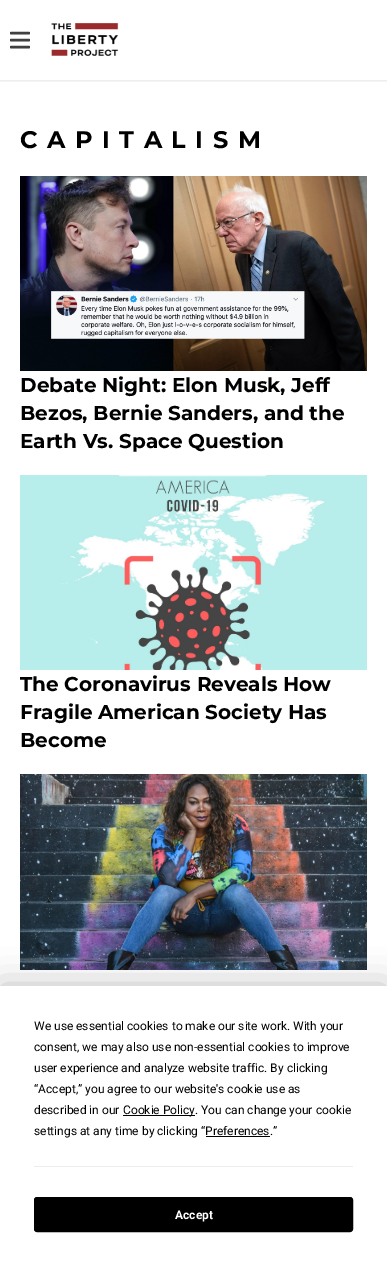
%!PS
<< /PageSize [387 1262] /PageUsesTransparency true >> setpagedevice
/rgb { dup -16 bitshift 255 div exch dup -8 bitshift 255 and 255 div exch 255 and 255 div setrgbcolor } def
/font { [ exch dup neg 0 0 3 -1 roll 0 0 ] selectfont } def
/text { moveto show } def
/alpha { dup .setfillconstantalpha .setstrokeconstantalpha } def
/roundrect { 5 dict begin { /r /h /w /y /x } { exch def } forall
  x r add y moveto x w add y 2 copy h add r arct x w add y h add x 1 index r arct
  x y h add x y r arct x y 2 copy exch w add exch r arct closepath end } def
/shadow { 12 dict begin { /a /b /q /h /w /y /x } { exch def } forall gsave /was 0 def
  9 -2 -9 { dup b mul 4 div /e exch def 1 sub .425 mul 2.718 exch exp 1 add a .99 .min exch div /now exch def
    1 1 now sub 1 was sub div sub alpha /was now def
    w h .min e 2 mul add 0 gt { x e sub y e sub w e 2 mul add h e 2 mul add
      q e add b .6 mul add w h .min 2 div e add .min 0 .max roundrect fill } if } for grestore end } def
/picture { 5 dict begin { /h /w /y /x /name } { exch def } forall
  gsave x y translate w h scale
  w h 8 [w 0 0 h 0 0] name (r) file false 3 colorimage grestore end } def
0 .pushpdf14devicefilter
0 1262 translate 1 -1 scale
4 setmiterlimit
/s1 { /Montserrat-Bold 20 font 16#000000 rgb } def
/s2 { /Roboto-Regular 12 font 16#000000 rgb } def
/s3 { /Roboto-Bold 12 font 16#FFFFFF rgb } def
16#FFFFFF rgb
0 0 387 1262 rectfill
gsave
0 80 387 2 rectclip
16#000000 rgb
0 1 387 80 0 1.5 0.1 shadow
grestore
gsave
10 30 20 20 rectclip
16#404040 rgb
2.4 setlinewidth
1 setlinecap
1 setlinejoin
11 33 moveto 29 33 lineto 11 40 moveto 29 40 lineto 11 47 moveto 29 47 lineto stroke
grestore
(pic1.raw) 51 23 68 33 picture
/Montserrat-Bold 24 font
16#000000 rgb
20 148 moveto 9.5 0 (CAPITALISM) ashow
(pic2.raw) 20 176 347 195 picture
s1
(Debate Night: Elon Musk, Jeff) 20 392 text
(Bezos, Bernie Sanders, and the) 20 420 text
(Earth Vs. Space Question) 20 448 text
(pic3.raw) 20 475 347 195 picture
(The Coronavirus Reveals How) 20 691 text
(Fragile American Society Has) 20 719 text
(Become) 20 747 text
(pic4.raw) 20 774 347 196 picture
0 986 387 276 0 17.5 0.25 shadow
16#FFFFFF rgb
0 986 387 276 rectfill
s2
(We use essential cookies to make our site work. With your) 34 1030 text
(consent, we may also use non-essential cookies to improve) 34 1051 text
(user experience and analyze website traffic. By clicking) 34 1072 text
(“Accept,” you agree to our website's cookie use as) 34 1093 text
(described in our) 34 1114 text
123 1115 72 1 rectfill
(Cookie Policy. You can change your cookie) 123 1114 text
(settings at any time by clicking “Preferences.”) 34 1135 text
206 1136 64 1 rectfill
16#EDEDEF rgb
34 1166 319 1 rectfill
16#000000 rgb
34.5 1197.5 318 34 2.5 roundrect gsave fill grestore
stroke
s3
(Accept) 175 1219 text
.poppdf14devicefilter showpage
